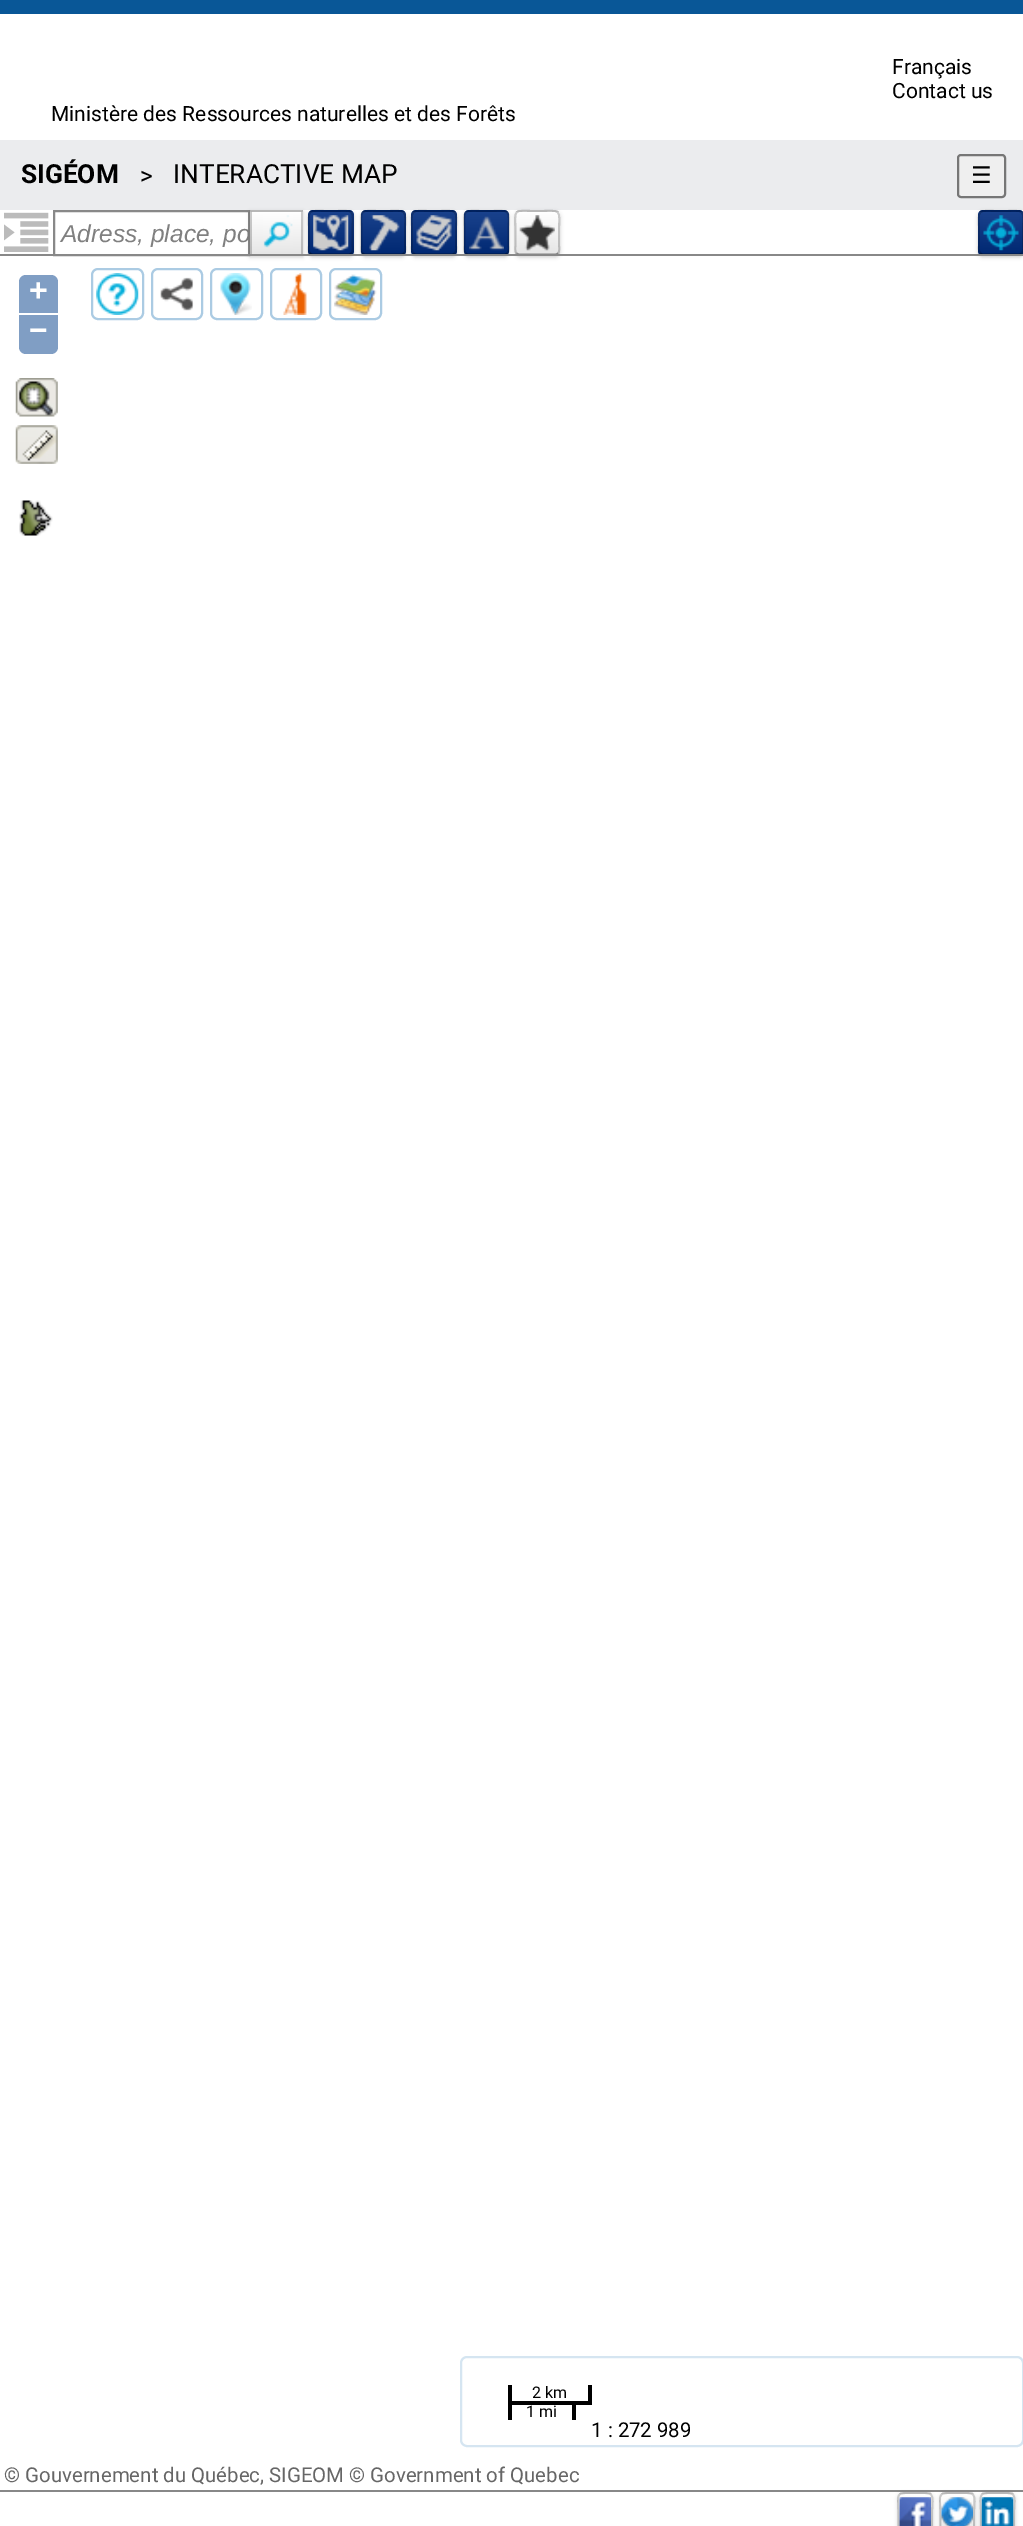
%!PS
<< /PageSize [1023 2526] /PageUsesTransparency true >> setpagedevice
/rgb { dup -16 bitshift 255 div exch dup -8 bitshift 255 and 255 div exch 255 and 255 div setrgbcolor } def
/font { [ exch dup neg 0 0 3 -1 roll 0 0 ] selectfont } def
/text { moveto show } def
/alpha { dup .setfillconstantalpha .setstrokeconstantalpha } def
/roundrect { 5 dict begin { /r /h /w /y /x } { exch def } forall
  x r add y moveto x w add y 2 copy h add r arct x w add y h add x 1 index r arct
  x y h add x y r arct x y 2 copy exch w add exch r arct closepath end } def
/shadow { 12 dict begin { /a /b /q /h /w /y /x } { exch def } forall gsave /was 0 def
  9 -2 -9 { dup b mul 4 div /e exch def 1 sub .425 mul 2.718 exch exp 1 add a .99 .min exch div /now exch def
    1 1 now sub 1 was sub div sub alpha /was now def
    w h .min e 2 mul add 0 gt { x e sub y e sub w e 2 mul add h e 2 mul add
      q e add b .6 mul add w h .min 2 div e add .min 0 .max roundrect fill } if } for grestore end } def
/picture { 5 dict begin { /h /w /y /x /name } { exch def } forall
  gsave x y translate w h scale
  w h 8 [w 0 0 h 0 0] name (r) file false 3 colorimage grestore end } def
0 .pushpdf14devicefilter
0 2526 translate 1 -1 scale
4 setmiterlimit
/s1 { /Roboto-Regular 21 font 16#000000 rgb } def
/s2 { /Roboto-Bold 26.25 font 16#000000 rgb } def
/s3 { /Roboto-Regular 24.5 font 16#000000 rgb } def
/s4 { /Roboto-Regular 26.25 font 16#000000 rgb } def
/s5 { /DejaVuSans-Regular 23 font 16#000000 rgb } def
/s6 { /LiberationSans-Italic 24.5 font 16#808080 rgb } def
/s7 { /LiberationSans-Bold 32 font 16#FFFFFF rgb } def
/s8 { /Roboto-Regular 16 font 16#000000 rgb } def
/s9 { /Roboto-Regular 20.4 font 16#000000 rgb } def
/s10 { /Roboto-Regular 20.4 font 16#666666 rgb } def
16#FFFFFF rgb
0 0 1023 2526 rectfill
16#095797 rgb
0 0 1023 14 rectfill
s1
(Français) 892 74 text
(Contact us) 892 98 text
(Ministère des Ressources naturelles et des Forêts) 51 121 text
16#EBECEE rgb
0 140 1023 70 rectfill
s2
(SIGÉOM) 21 183 text
s3
(>) 140 184 text
s4
(INTERACTIVE MAP) 173 183 text
16#EFEFEF rgb
958 155 47 42 3 roundrect gsave fill grestore
16#767676 rgb
2 setlinewidth
stroke
s5
(☰) 971 183 text
(pic1.raw) 4 212 45 40 picture
16#888888 rgb
54 211 195 44 rectstroke
gsave
54 219 195 28 rectclip
s6
(Adress, place, po) 61 242 text
grestore
16#000000 rgb
250 212 53 45 0 2 0.2 shadow
gsave 250 210 moveto 303 210 lineto 303 212 lineto 250 212 lineto closepath clip newpath
<< /ShadingType 2 /ColorSpace /DeviceRGB /Coords [277 212 277 170] /Extend [true true] /Function << /FunctionType 2 /Domain [0 1] /C0 [0.902 0.902 0.902] /C1 [1 1 1] /N 1 >> >> shfill grestore
gsave 250 212 moveto 303 212 lineto 303 254 lineto 250 254 lineto closepath clip newpath
<< /ShadingType 2 /ColorSpace /DeviceRGB /Coords [277 254 277 212] /Extend [true true] /Function << /FunctionType 2 /Domain [0 1] /C0 [0.902 0.902 0.902] /C1 [1 1 1] /N 1 >> >> shfill grestore
16#B8B8B8 rgb
250 210 moveto 303 210 lineto 301 212 lineto 252 212 lineto closepath fill
0.2 alpha
16#000000 rgb
303 210 moveto 303 256 lineto 301 254 lineto 301 212 lineto closepath 250 256 moveto 250 210 lineto 252 212 lineto 252 254 lineto closepath fill
1 alpha
(pic2.raw) 263 215 30 33 picture
308 212 46 45 5 2 0.2 shadow
16#002C7F rgb
308 210 46 46 5 roundrect fill
gsave
308 210 46 46 5 roundrect clip newpath
0.1 alpha
gsave 308 210 moveto 354 210 lineto 354 212 lineto 308 212 lineto closepath clip newpath
<< /ShadingType 2 /ColorSpace /DeviceRGB /Coords [331 212 331 170] /Extend [true true] /Function << /FunctionType 2 /Domain [0 1] /C0 [0 0 0] /C1 [1 1 1] /N 1 >> >> shfill grestore
gsave 308 212 moveto 354 212 lineto 354 254 lineto 308 254 lineto closepath clip newpath
<< /ShadingType 2 /ColorSpace /DeviceRGB /Coords [331 254 331 212] /Extend [true true] /Function << /FunctionType 2 /Domain [0 1] /C0 [0 0 0] /C1 [1 1 1] /N 1 >> >> shfill grestore
grestore
0.4 alpha
16#000000 rgb
1.8 setlinewidth
351.5 253.5 moveto 350.5 254 349.5 254.5 348 254.5 curveto 313 254.5 lineto 312 254.5 311 254 310 253.5 curveto stroke
0.2 alpha
310 253.5 moveto 308 251 309 247 309 244.5 curveto 309 233 lineto 309 207 305 211 331 211 curveto 356.5 211 352.5 207 352.5 233 curveto 352.5 244.5 lineto 352.5 247 353.5 251 351.5 253.5 curveto stroke
1 alpha
(pic3.raw) 313 215 36 36 picture
361 212 45 45 5 2 0.2 shadow
16#002C7F rgb
361 210 45 46 5 roundrect fill
gsave
361 210 45 46 5 roundrect clip newpath
0.1 alpha
gsave 361 210 moveto 406 210 lineto 406 212 lineto 361 212 lineto closepath clip newpath
<< /ShadingType 2 /ColorSpace /DeviceRGB /Coords [383 212 383 170] /Extend [true true] /Function << /FunctionType 2 /Domain [0 1] /C0 [0 0 0] /C1 [1 1 1] /N 1 >> >> shfill grestore
gsave 361 212 moveto 406 212 lineto 406 254 lineto 361 254 lineto closepath clip newpath
<< /ShadingType 2 /ColorSpace /DeviceRGB /Coords [383 254 383 212] /Extend [true true] /Function << /FunctionType 2 /Domain [0 1] /C0 [0 0 0] /C1 [1 1 1] /N 1 >> >> shfill grestore
grestore
0.4 alpha
16#000000 rgb
404 253.5 moveto 403 254 402 254.5 401 254.5 curveto 366 254.5 lineto 364.5 254.5 363.5 254 362.5 253.5 curveto stroke
0.2 alpha
362.5 253.5 moveto 360.5 251 361.5 247 361.5 244.5 curveto 361.5 233 lineto 361.5 207 357.5 211 383 211 curveto 409 211 405 207 405 233 curveto 405 244.5 lineto 405 247 406 251 404 253.5 curveto stroke
1 alpha
(pic4.raw) 369 215 31 36 picture
411 212 46 45 5 2 0.2 shadow
16#002C7F rgb
411 210 46 46 5 roundrect fill
gsave
411 210 46 46 5 roundrect clip newpath
0.1 alpha
gsave 411 210 moveto 457 210 lineto 457 212 lineto 411 212 lineto closepath clip newpath
<< /ShadingType 2 /ColorSpace /DeviceRGB /Coords [434 212 434 170] /Extend [true true] /Function << /FunctionType 2 /Domain [0 1] /C0 [0 0 0] /C1 [1 1 1] /N 1 >> >> shfill grestore
gsave 411 212 moveto 457 212 lineto 457 254 lineto 411 254 lineto closepath clip newpath
<< /ShadingType 2 /ColorSpace /DeviceRGB /Coords [434 254 434 212] /Extend [true true] /Function << /FunctionType 2 /Domain [0 1] /C0 [0 0 0] /C1 [1 1 1] /N 1 >> >> shfill grestore
grestore
0.4 alpha
16#000000 rgb
454.5 253.5 moveto 454 254 452.5 254.5 451.5 254.5 curveto 416.5 254.5 lineto 415.5 254.5 414 254 413.5 253.5 curveto stroke
0.2 alpha
413.5 253.5 moveto 411 251 412 247 412 244.5 curveto 412 233 lineto 412 207 408 211 434 211 curveto 460 211 456 207 456 233 curveto 456 244.5 lineto 456 247 457 251 454.5 253.5 curveto stroke
1 alpha
(pic5.raw) 416 215 36 36 picture
464 212 45 45 5 2 0.2 shadow
16#002C7F rgb
464 210 45 46 5 roundrect fill
gsave
464 210 45 46 5 roundrect clip newpath
0.1 alpha
gsave 464 210 moveto 509 210 lineto 509 212 lineto 464 212 lineto closepath clip newpath
<< /ShadingType 2 /ColorSpace /DeviceRGB /Coords [487 212 487 170] /Extend [true true] /Function << /FunctionType 2 /Domain [0 1] /C0 [0 0 0] /C1 [1 1 1] /N 1 >> >> shfill grestore
gsave 464 212 moveto 509 212 lineto 509 254 lineto 464 254 lineto closepath clip newpath
<< /ShadingType 2 /ColorSpace /DeviceRGB /Coords [487 254 487 212] /Extend [true true] /Function << /FunctionType 2 /Domain [0 1] /C0 [0 0 0] /C1 [1 1 1] /N 1 >> >> shfill grestore
grestore
0.4 alpha
16#000000 rgb
507 253.5 moveto 506.5 254 505 254.5 504 254.5 curveto 469 254.5 lineto 468 254.5 466.5 254 466 253.5 curveto stroke
0.2 alpha
466 253.5 moveto 463.5 251 464.5 247 464.5 244.5 curveto 464.5 233 lineto 464.5 207 460.5 211 486.5 211 curveto 512.5 211 508.5 207 508.5 233 curveto 508.5 244.5 lineto 508.5 247 509.5 251 507 253.5 curveto stroke
1 alpha
(pic6.raw) 469 216 35 35 picture
515 212 45 45 5 2 0.2 shadow
16#FFFFFF rgb
515 210 45 46 5 roundrect fill
gsave
515 210 45 46 5 roundrect clip newpath
0.1 alpha
gsave 515 210 moveto 560 210 lineto 560 212 lineto 515 212 lineto closepath clip newpath
<< /ShadingType 2 /ColorSpace /DeviceRGB /Coords [537 212 537 170] /Extend [true true] /Function << /FunctionType 2 /Domain [0 1] /C0 [0 0 0] /C1 [1 1 1] /N 1 >> >> shfill grestore
gsave 515 212 moveto 560 212 lineto 560 254 lineto 515 254 lineto closepath clip newpath
<< /ShadingType 2 /ColorSpace /DeviceRGB /Coords [537 254 537 212] /Extend [true true] /Function << /FunctionType 2 /Domain [0 1] /C0 [0 0 0] /C1 [1 1 1] /N 1 >> >> shfill grestore
grestore
0.4 alpha
16#000000 rgb
558 253.5 moveto 557 254 556 254.5 555 254.5 curveto 520 254.5 lineto 518.5 254.5 517.5 254 516.5 253.5 curveto stroke
0.2 alpha
516.5 253.5 moveto 514.5 251 515.5 247 515.5 244.5 curveto 515.5 233 lineto 515.5 207 511.5 211 537 211 curveto 563 211 559 207 559 233 curveto 559 244.5 lineto 559 247 560 251 558 253.5 curveto stroke
1 alpha
(pic7.raw) 519 215 36 36 picture
978 212 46 45 5 2 0.2 shadow
16#002C7F rgb
978 210 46 46 5 roundrect fill
gsave
978 210 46 46 5 roundrect clip newpath
0.1 alpha
gsave 978 210 moveto 1023 210 lineto 1023 212 lineto 978 212 lineto closepath clip newpath
<< /ShadingType 2 /ColorSpace /DeviceRGB /Coords [1001 212 1001 170] /Extend [true true] /Function << /FunctionType 2 /Domain [0 1] /C0 [0 0 0] /C1 [1 1 1] /N 1 >> >> shfill grestore
grestore
0.1 alpha
gsave 978 212 moveto 1023 212 lineto 1023 254 lineto 978 254 lineto closepath clip newpath
<< /ShadingType 2 /ColorSpace /DeviceRGB /Coords [1001 254 1001 212] /Extend [true true] /Function << /FunctionType 2 /Domain [0 1] /C0 [0 0 0] /C1 [1 1 1] /N 1 >> >> shfill grestore
0.4 alpha
16#000000 rgb
1021.5 253.5 moveto 1021 254 1019.5 254.5 1018.5 254.5 curveto 983.5 254.5 lineto 982.5 254.5 981 254 980.5 253.5 curveto stroke
0.2 alpha
980.5 253.5 moveto 978 251 979 247 979 244.5 curveto 979 233 lineto 979 207 975 211 1001 211 curveto 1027 211 1023 207 1023 233 curveto 1023 244.5 lineto 1023 247 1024 251 1021.5 253.5 curveto stroke
1 alpha
(pic8.raw) 983 215 36 36 picture
16#888888 rgb
0 254 1023 2 rectfill
0 2490 1023 2 rectfill
16#809EC4 rgb
26 275 moveto 51 275 lineto 55 275 58 278 58 282 curveto 58 313 lineto 19 313 lineto 19 282 lineto 19 278 22 275 26 275 curveto closepath fill
s7
(+) 29 301 text
16#809EC4 rgb
19 315 moveto 58 315 lineto 58 347 lineto 58 351 55 354 51 354 curveto 26 354 lineto 22 354 19 351 19 347 curveto closepath fill
s7
(−) 29 341 text
16#ABCBE3 rgb
2 setlinewidth
92 269 51 50 6 roundrect stroke
(pic9.raw) 96 273 43 42 picture
152 269 50 50 6 roundrect stroke
(pic10.raw) 160 277 34 34 picture
211 269 51 50 6 roundrect stroke
(pic11.raw) 220 273 32 42 picture
271 269 50 50 6 roundrect stroke
(pic12.raw) 283 273 24 42 picture
330 269 51 50 6 roundrect stroke
(pic13.raw) 334 274 43 41 picture
(pic14.raw) 15 378 43 39 picture
(pic15.raw) 15 425 43 39 picture
(pic16.raw) 19 500 34 36 picture
16#D5E5F1 rgb
461 2357 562 89 6 roundrect stroke
16#000000 rgb
588 2385 4 20 rectfill
508 2401 84 4 rectfill
508 2385 4 35 rectfill
s8
(2 km) 532 2398 text
572 2401 4 19 rectfill
(1 mi) 526 2417 text
s9
(1 : 272 989) 591 2437 text
s10
(© Gouvernement du Québec, SIGEOM © Government of Quebec) 4 2482 text
16#000000 rgb
898 2494 35 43 5 2 0.2 shadow
16#FFFFFF rgb
898 2492 35 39 5 roundrect fill
gsave
898 2492 35 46 5 roundrect clip newpath
0.1 alpha
gsave 898 2492 moveto 933 2492 lineto 933 2494 lineto 898 2494 lineto closepath clip newpath
<< /ShadingType 2 /ColorSpace /DeviceRGB /Coords [915 2494 915 2452] /Extend [true true] /Function << /FunctionType 2 /Domain [0 1] /C0 [0 0 0] /C1 [1 1 1] /N 1 >> >> shfill grestore
1 alpha
gsave 898 2494 moveto 933 2494 lineto 933 2526 lineto 898 2526 lineto closepath clip newpath
<< /ShadingType 2 /ColorSpace /DeviceRGB /Coords [915 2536 915 2494] /Extend [true true] /Function << /FunctionType 2 /Domain [0 1] /C0 [0.898 0.898 0.898] /C1 [1 1 1] /N 1 >> >> shfill grestore
grestore
0.2 alpha
16#000000 rgb
1.8 setlinewidth
900 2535.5 moveto 897.5 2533 898.5 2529 898.5 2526.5 curveto 898.5 2515 lineto 898.5 2491.5 894 2493 915 2493 curveto 936.5 2493 932 2491.5 932 2515 curveto 932 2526.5 lineto 932 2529 933 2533 930.5 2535.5 curveto stroke
1 alpha
(pic17.raw) 899 2497 32 29 picture
940 2494 35 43 5 2 0.2 shadow
16#FFFFFF rgb
940 2492 35 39 5 roundrect fill
gsave
940 2492 35 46 5 roundrect clip newpath
0.1 alpha
gsave 940 2492 moveto 975 2492 lineto 975 2494 lineto 940 2494 lineto closepath clip newpath
<< /ShadingType 2 /ColorSpace /DeviceRGB /Coords [957 2494 957 2452] /Extend [true true] /Function << /FunctionType 2 /Domain [0 1] /C0 [0 0 0] /C1 [1 1 1] /N 1 >> >> shfill grestore
1 alpha
gsave 940 2494 moveto 975 2494 lineto 975 2526 lineto 940 2526 lineto closepath clip newpath
<< /ShadingType 2 /ColorSpace /DeviceRGB /Coords [957 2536 957 2494] /Extend [true true] /Function << /FunctionType 2 /Domain [0 1] /C0 [0.898 0.898 0.898] /C1 [1 1 1] /N 1 >> >> shfill grestore
grestore
0.2 alpha
16#000000 rgb
942 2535.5 moveto 939.5 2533 940.5 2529 940.5 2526.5 curveto 940.5 2515 lineto 940.5 2491.5 936 2493 957 2493 curveto 978.5 2493 974 2491.5 974 2515 curveto 974 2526.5 lineto 974 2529 975 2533 972.5 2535.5 curveto stroke
1 alpha
(pic18.raw) 941 2497 32 29 picture
980 2494 35 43 5 2 0.2 shadow
16#FFFFFF rgb
980 2492 35 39 5 roundrect fill
gsave
980 2492 35 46 5 roundrect clip newpath
0.1 alpha
gsave 980 2492 moveto 1015 2492 lineto 1015 2494 lineto 980 2494 lineto closepath clip newpath
<< /ShadingType 2 /ColorSpace /DeviceRGB /Coords [998 2494 998 2452] /Extend [true true] /Function << /FunctionType 2 /Domain [0 1] /C0 [0 0 0] /C1 [1 1 1] /N 1 >> >> shfill grestore
1 alpha
gsave 980 2494 moveto 1015 2494 lineto 1015 2526 lineto 980 2526 lineto closepath clip newpath
<< /ShadingType 2 /ColorSpace /DeviceRGB /Coords [998 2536 998 2494] /Extend [true true] /Function << /FunctionType 2 /Domain [0 1] /C0 [0.898 0.898 0.898] /C1 [1 1 1] /N 1 >> >> shfill grestore
grestore
0.2 alpha
16#000000 rgb
982 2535.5 moveto 980 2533 981 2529 981 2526.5 curveto 981 2515 lineto 981 2491.5 976.5 2493 997.5 2493 curveto 1018.5 2493 1014 2491.5 1014 2515 curveto 1014 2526.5 lineto 1014 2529 1015 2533 1013 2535.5 curveto stroke
1 alpha
(pic19.raw) 981 2497 33 29 picture
.poppdf14devicefilter showpage
